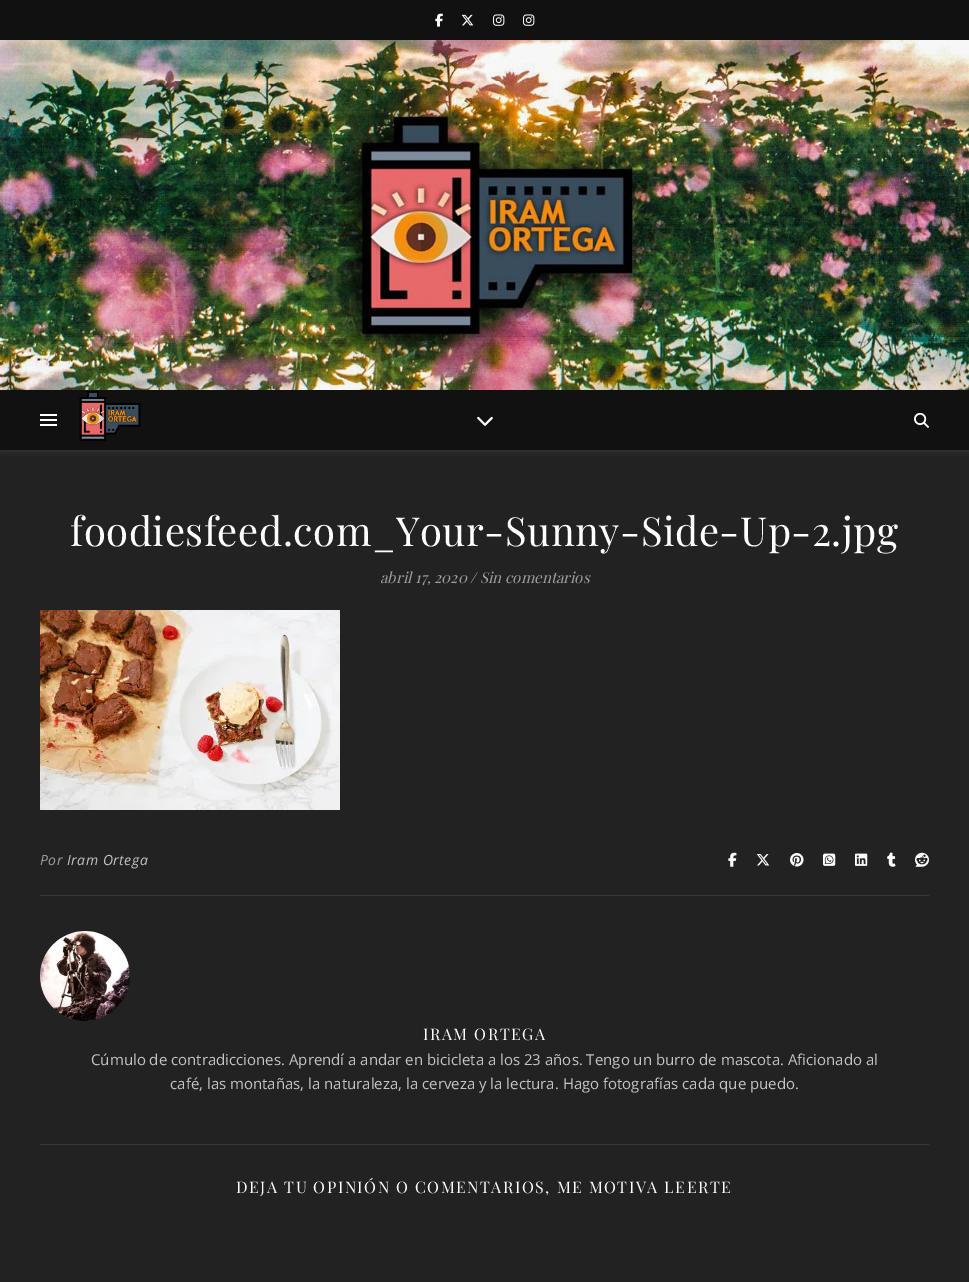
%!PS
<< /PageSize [969 1282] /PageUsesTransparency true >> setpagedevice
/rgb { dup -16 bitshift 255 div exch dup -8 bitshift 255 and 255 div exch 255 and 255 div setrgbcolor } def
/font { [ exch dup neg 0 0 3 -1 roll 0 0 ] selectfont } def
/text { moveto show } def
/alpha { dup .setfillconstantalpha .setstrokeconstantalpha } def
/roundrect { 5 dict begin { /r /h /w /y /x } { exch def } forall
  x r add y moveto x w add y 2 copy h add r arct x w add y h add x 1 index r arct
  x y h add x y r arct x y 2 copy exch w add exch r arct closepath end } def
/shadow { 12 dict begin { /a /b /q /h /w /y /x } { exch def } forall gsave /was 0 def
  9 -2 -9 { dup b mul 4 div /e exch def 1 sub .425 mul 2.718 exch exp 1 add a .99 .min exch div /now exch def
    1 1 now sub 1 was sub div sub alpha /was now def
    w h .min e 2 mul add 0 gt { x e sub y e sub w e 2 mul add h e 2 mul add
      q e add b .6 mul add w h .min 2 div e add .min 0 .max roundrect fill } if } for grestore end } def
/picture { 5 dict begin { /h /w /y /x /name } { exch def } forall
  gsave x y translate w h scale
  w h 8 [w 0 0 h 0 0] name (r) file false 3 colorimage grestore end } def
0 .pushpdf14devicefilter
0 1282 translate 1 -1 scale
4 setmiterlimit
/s1 { /PlayfairDisplay-Italic 15 font 16#9E9E9E rgb } def
/s2 { /PlayfairDisplay-Italic 15 font 16#C4C4C4 rgb } def
/s3 { /OpenSans-Regular 15 font 16#C4C4C4 rgb } def
16#222222 rgb
0 0 969 1282 rectfill
16#111111 rgb
0 0 969 40 rectfill
(pic1.raw) 435 13 8 14 picture
(pic2.raw) 461 14 13 12 picture
(pic3.raw) 493 14 12 12 picture
(pic3.raw) 523 14 12 12 picture
(pic4.raw) 0 40 969 350 picture
16#FFFFFF rgb
0 391 969 60 0 2.5 0.1 shadow
16#111111 rgb
0 390 969 60 rectfill
16#FFFFFF rgb
40 414 17 2 rectfill
40 419 17 2 rectfill
40 424 17 2 rectfill
(pic5.raw) 79 391 62 50 picture
(pic6.raw) 477 416 16 10 picture
(pic7.raw) 914 412 15 16 picture
/PlayfairDisplay-Regular 40 font
70 546 moveto 0.5 0 (foodiesfeed.com_Your-Sunny-Side-Up-2.jpg) ashow
s1
(abril 17, 2020) 380 583 text
s2
(/) 470 583 text
s1
(Sin comentarios) 480 583 text
(pic8.raw) 40 610 300 200 picture
16#383838 rgb
40 895 889 1 rectfill
/OpenSans-Italic 14 font
16#9E9E9E rgb
40 865 moveto 0.5 0 (Por) ashow
16#C4C4C4 rgb
67 865 moveto 0.5 0 (Iram Ortega) ashow
(pic9.raw) 728 852 9 15 picture
(pic10.raw) 756 854 14 12 picture
(pic11.raw) 790 853 14 14 picture
(pic12.raw) 823 853 13 13 picture
(pic13.raw) 855 853 13 13 picture
(pic14.raw) 887 852 9 15 picture
(pic15.raw) 915 852 14 15 picture
16#383838 rgb
40 1144 889 1 rectfill
(pic16.raw) 40 931 90 90 picture
/PlayfairDisplay-Regular 16 font
16#FFFFFF rgb
423 1040 moveto 1.5 0 (IRAM ORTEGA) ashow
s3
(Cúmulo de contradicciones. Aprendí a andar en bicicleta a los 23 años. Tengo un burro de mascota. Aficionado al) 91 1065 text
(café, las montañas, la naturaleza, la cerveza y la lectura. Hago fotografías cada que puedo.) 170 1089 text
/PlayfairDisplay-Regular 16 font
16#FFFFFF rgb
236 1193 moveto 1.5 0 (DEJA TU OPINIÓN O COMENTARIOS, ME MOTIVA LEERTE) ashow
.poppdf14devicefilter showpage
